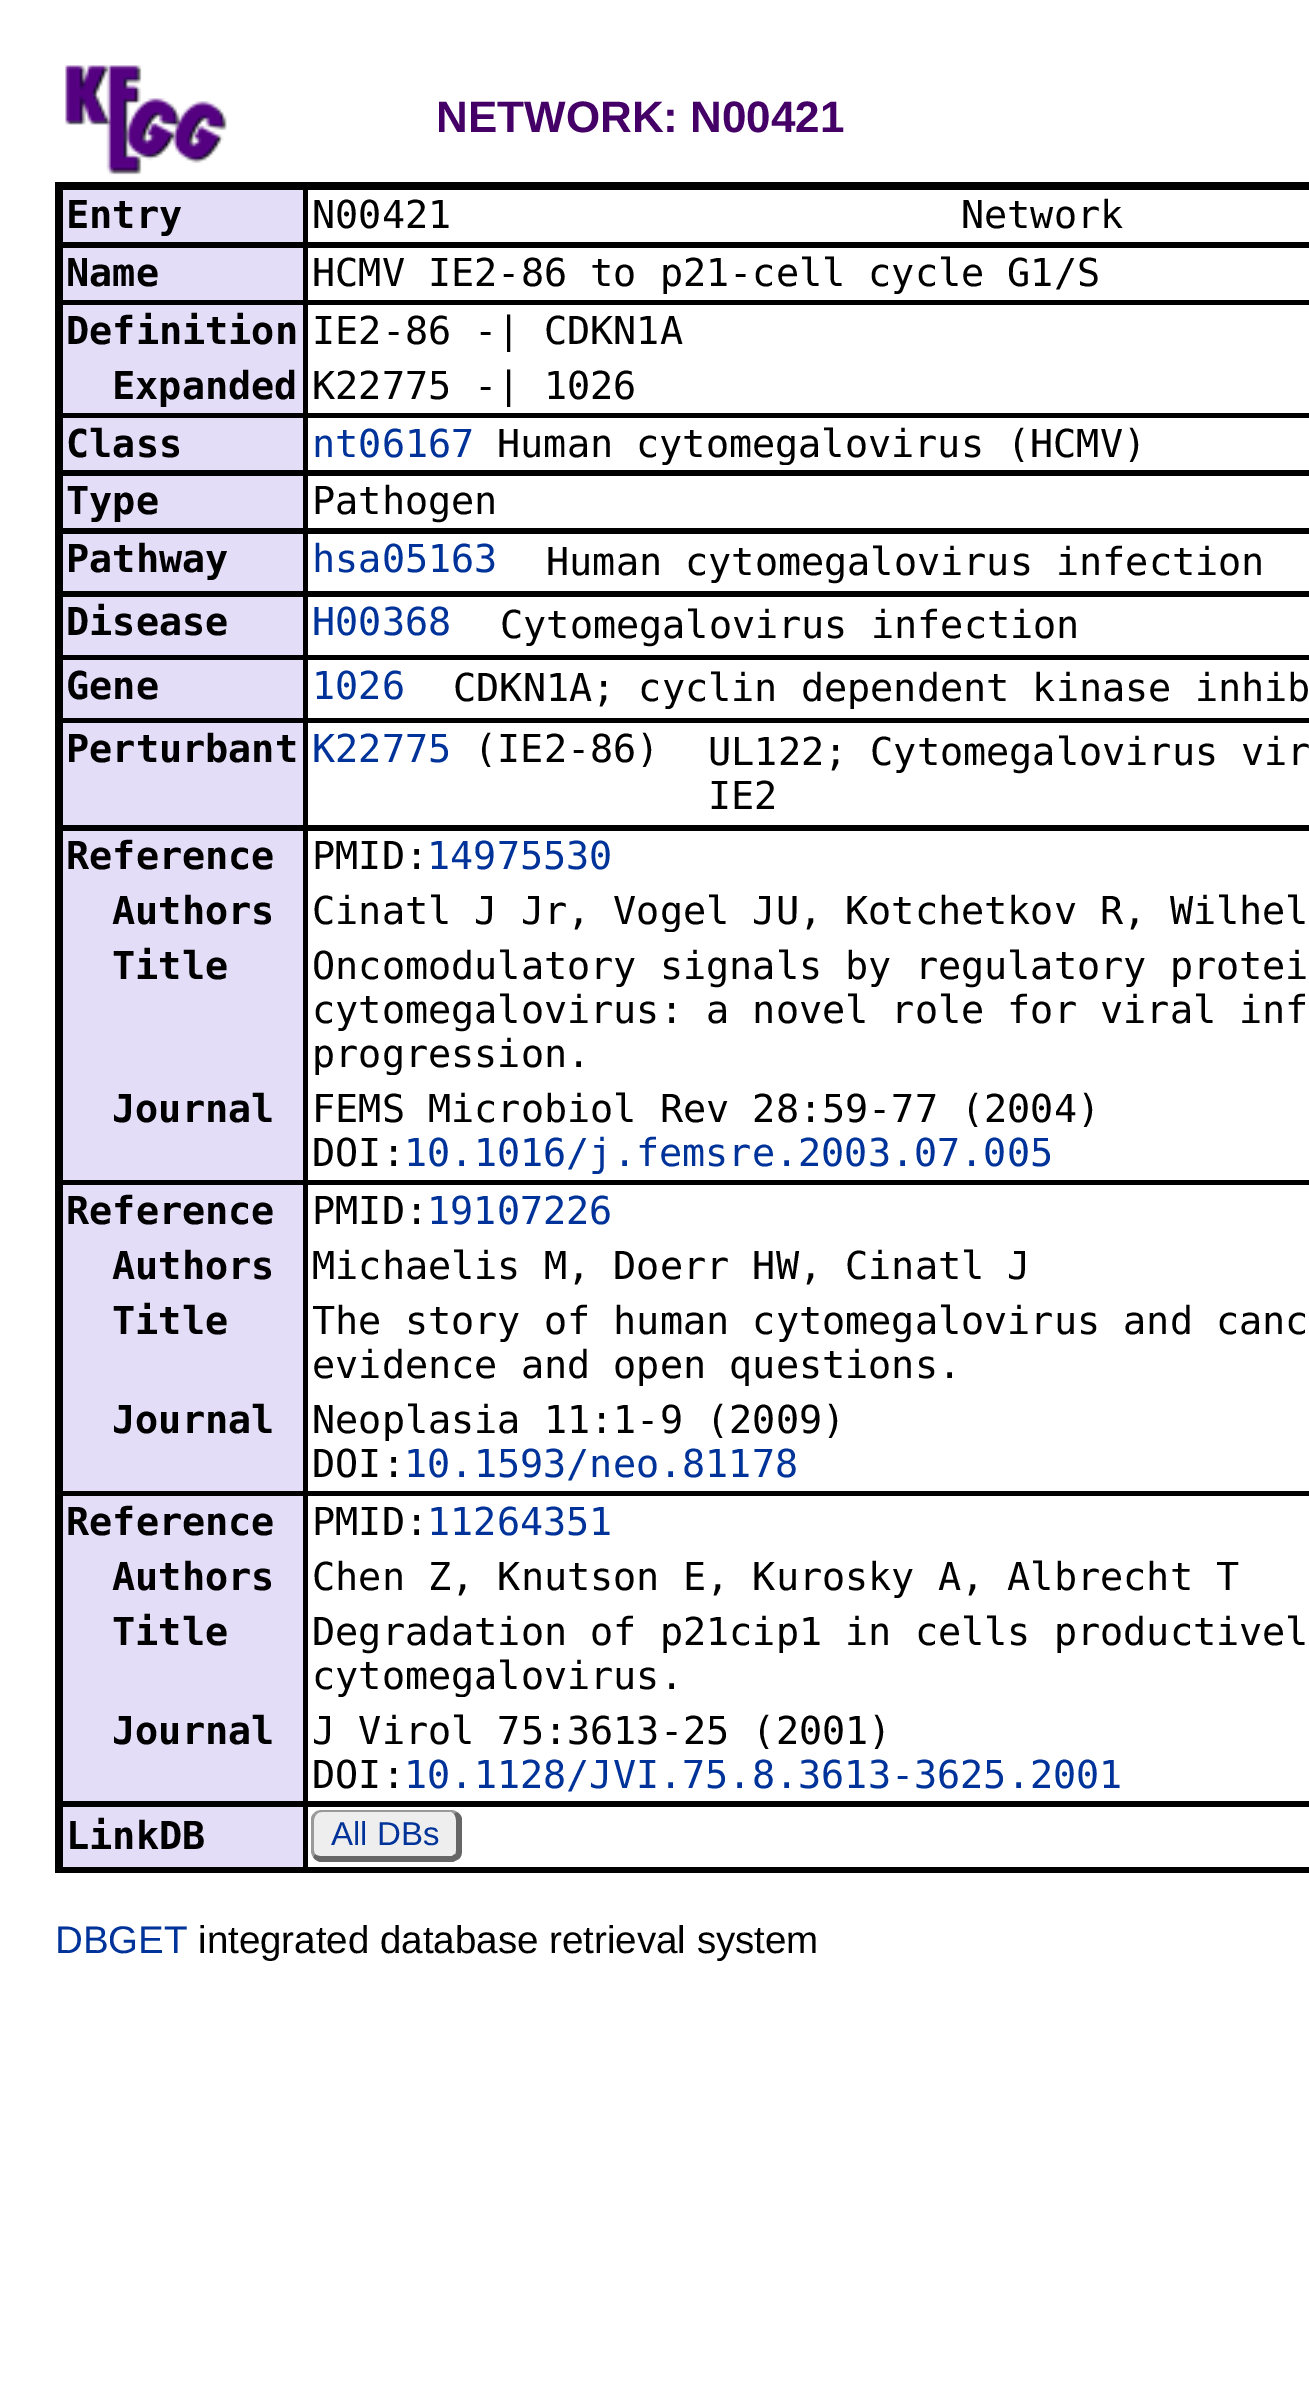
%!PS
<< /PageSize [1309 2385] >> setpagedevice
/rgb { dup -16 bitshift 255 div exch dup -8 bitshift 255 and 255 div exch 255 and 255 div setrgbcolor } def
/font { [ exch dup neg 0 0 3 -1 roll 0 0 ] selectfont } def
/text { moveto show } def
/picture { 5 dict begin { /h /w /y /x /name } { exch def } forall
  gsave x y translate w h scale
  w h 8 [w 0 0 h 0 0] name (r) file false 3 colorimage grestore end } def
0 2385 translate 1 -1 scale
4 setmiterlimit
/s1 { /LiberationSans-Bold 44 font 16#440066 rgb } def
/s2 { /DejaVuSansMono-Bold 38.5 font 16#000000 rgb } def
/s3 { /DejaVuSansMono-Regular 38.5 font 16#000000 rgb } def
/s4 { /DejaVuSansMono-Regular 38.5 font 16#003399 rgb } def
/s5 { /LiberationSans-Regular 33 font 16#003399 rgb } def
/s6 { /LiberationSans-Regular 38.5 font 16#003399 rgb } def
/s7 { /LiberationSans-Regular 38.5 font 16#000000 rgb } def
16#FFFFFF rgb
0 0 1309 2385 rectfill
(pic1.raw) 65 65 162 110 picture
s1
(NETWORK: N00421) 436 132 text
16#000000 rgb
55 182 1254 1691 rectfill
16#E4DDF8 rgb
63 190 240 52 rectfill
s2
(Entry) 66 228 text
16#FFFFFF rgb
308 190 1001 52 rectfill
s3
(N00421                      Network) 312 228 text
16#E4DDF8 rgb
63 248 240 52 rectfill
s2
(Name) 66 286 text
16#FFFFFF rgb
308 248 1001 52 rectfill
s3
(HCMV IE2-86 to p21-cell cycle G1/S) 312 286 text
16#E4DDF8 rgb
63 305 240 108 rectfill
s2
(Definition) 66 344 text
16#FFFFFF rgb
308 305 1001 108 rectfill
gsave
311 308 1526 44 rectclip
s3
(IE2-86 -| CDKN1A) 312 344 text
grestore
s2
(Expanded) 112 399 text
gsave
311 363 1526 44 rectclip
s3
(K22775 -| 1026) 312 399 text
grestore
16#E4DDF8 rgb
63 418 240 52 rectfill
s2
(Class) 66 457 text
16#FFFFFF rgb
308 418 1001 52 rectfill
s4
(nt06167) 312 457 text
gsave
311 421 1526 44 rectclip
s3
(Human cytomegalovirus \(HCMV\)) 497 457 text
grestore
16#E4DDF8 rgb
63 476 240 52 rectfill
s2
(Type) 66 514 text
16#FFFFFF rgb
308 476 1001 52 rectfill
s3
(Pathogen) 312 514 text
16#E4DDF8 rgb
63 534 240 57 rectfill
s2
(Pathway) 66 572 text
16#FFFFFF rgb
308 534 1001 57 rectfill
s4
(hsa05163) 312 572 text
s3
(Human cytomegalovirus infection) 546 575 text
16#E4DDF8 rgb
63 597 240 58 rectfill
s2
(Disease) 66 635 text
16#FFFFFF rgb
308 597 1001 58 rectfill
s4
(H00368) 312 635 text
s3
(Cytomegalovirus infection) 500 638 text
16#E4DDF8 rgb
63 660 240 58 rectfill
s2
(Gene) 66 699 text
16#FFFFFF rgb
308 660 1001 58 rectfill
s4
(1026) 312 699 text
s3
(CDKN1A; cyclin dependent kinase inhib) 453 701 text
16#E4DDF8 rgb
63 723 240 102 rectfill
s2
(Perturbant) 66 762 text
16#FFFFFF rgb
308 723 1001 102 rectfill
s4
(K22775) 312 762 text
s3
(\(IE2-86\)) 474 762 text
(UL122; Cytomegalovirus vir) 708 765 text
(IE2) 708 809 text
16#E4DDF8 rgb
63 831 240 349 rectfill
s2
(Reference) 66 869 text
16#FFFFFF rgb
308 831 1001 349 rectfill
s3
(PMID:) 312 869 text
s4
(14975530) 427 869 text
s2
(Authors) 112 924 text
gsave
311 888 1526 44 rectclip
s3
(Cinatl J Jr, Vogel JU, Kotchetkov R, Wilhel) 312 924 text
grestore
(Title) 112 979 text
s3
(Oncomodulatory signals by regulatory protei) 312 979 text
(cytomegalovirus: a novel role for viral inf) 312 1023 text
gsave
311 943 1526 132 rectclip
(progression.) 312 1067 text
grestore
s2
(Journal) 112 1122 text
s3
(FEMS Microbiol Rev 28:59-77 \(2004\)) 312 1122 text
(DOI:) 312 1166 text
s4
(10.1016/j.femsre.2003.07.005) 404 1166 text
16#E4DDF8 rgb
63 1185 240 306 rectfill
s2
(Reference) 66 1224 text
16#FFFFFF rgb
308 1185 1001 306 rectfill
s3
(PMID:) 312 1224 text
s4
(19107226) 427 1224 text
s2
(Authors) 112 1279 text
s3
(Michaelis M, Doerr HW, Cinatl J) 312 1279 text
s2
(Title) 112 1334 text
s3
(The story of human cytomegalovirus and canc) 312 1334 text
(evidence and open questions.) 312 1378 text
s2
(Journal) 112 1433 text
s3
(Neoplasia 11:1-9 \(2009\)) 312 1433 text
(DOI:) 312 1477 text
s4
(10.1593/neo.81178) 404 1477 text
16#E4DDF8 rgb
63 1496 240 305 rectfill
s2
(Reference) 66 1535 text
16#FFFFFF rgb
308 1496 1001 305 rectfill
s3
(PMID:) 312 1535 text
s4
(11264351) 427 1535 text
s2
(Authors) 112 1590 text
s3
(Chen Z, Knutson E, Kurosky A, Albrecht T) 312 1590 text
s2
(Title) 112 1645 text
s3
(Degradation of p21cip1 in cells productivel) 312 1645 text
gsave
311 1609 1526 88 rectclip
(cytomegalovirus.) 312 1689 text
grestore
s2
(Journal) 112 1744 text
s3
(J Virol 75:3613-25 \(2001\)) 312 1744 text
(DOI:) 312 1788 text
s4
(10.1128/JVI.75.8.3613-3625.2001) 404 1788 text
16#E4DDF8 rgb
63 1807 240 60 rectfill
s2
(LinkDB) 66 1849 text
16#FFFFFF rgb
308 1807 1001 60 rectfill
16#EEEEEE rgb
322 1812 moveto 451 1812 lineto 454 1812 456 1816 456 1820 curveto 456 1851 lineto 456 1854 454 1856 451 1856 curveto 322 1856 lineto 317 1856 314 1854 314 1851 curveto 314 1820 lineto 314 1816 317 1812 322 1812 curveto closepath fill
16#999999 rgb
322 1810 moveto 319 1810 316 1811 314 1813 curveto 316 1815 lineto 317 1813 319 1812 322 1812 curveto 451 1812 lineto 452 1812 453 1813 454 1814 curveto 457 1812 lineto 456 1811 453 1810 451 1810 curveto closepath fill
16#666666 rgb
457 1812 moveto 460 1814 462 1816 462 1820 curveto 462 1851 lineto 462 1854 461 1857 459 1859 curveto 455 1854 lineto 456 1854 456 1852 456 1851 curveto 456 1820 lineto 456 1818 455 1815 454 1814 curveto closepath fill
320 1862 moveto 317 1861 315 1860 313 1857 curveto 315 1854 lineto 316 1855 318 1856 320 1856 curveto 452 1856 lineto 455 1854 lineto 459 1859 lineto 457 1860 455 1861 453 1862 curveto closepath fill
16#999999 rgb
314 1813 moveto 312 1815 311 1817 311 1820 curveto 311 1851 lineto 311 1853 312 1855 313 1857 curveto 315 1854 lineto 314 1851 lineto 314 1820 lineto 314 1818 315 1816 316 1815 curveto closepath fill
s5
(All DBs) 331 1845 text
s6
(DBGET) 55 1953 text
s7
(integrated database retrieval system) 198 1953 text
showpage
